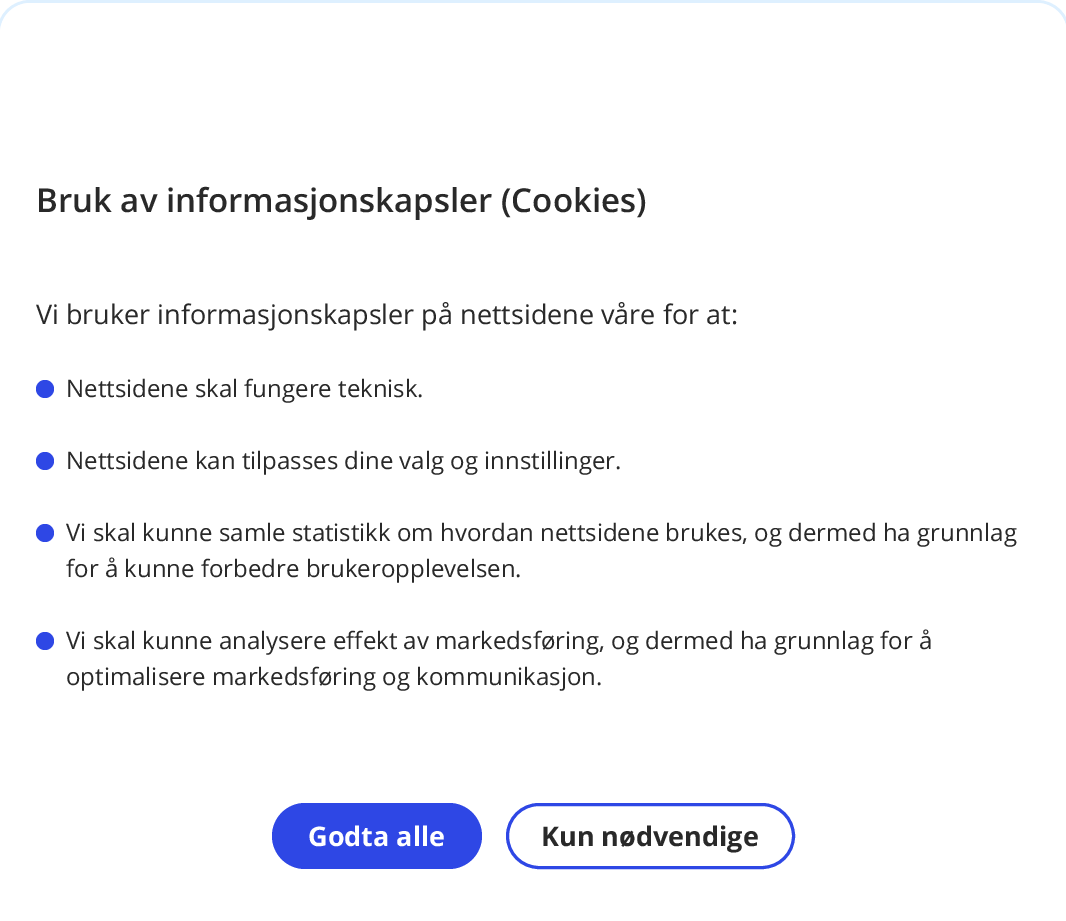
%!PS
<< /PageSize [1066 921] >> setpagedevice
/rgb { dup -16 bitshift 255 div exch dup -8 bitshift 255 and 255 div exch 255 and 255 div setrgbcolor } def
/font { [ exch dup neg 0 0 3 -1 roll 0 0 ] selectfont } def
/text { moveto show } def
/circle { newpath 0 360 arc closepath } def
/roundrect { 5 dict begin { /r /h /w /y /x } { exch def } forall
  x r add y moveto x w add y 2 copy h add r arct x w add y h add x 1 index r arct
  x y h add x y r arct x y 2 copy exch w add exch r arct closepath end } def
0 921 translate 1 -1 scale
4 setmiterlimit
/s1 { /OpenSans-SemiBold 33 font 16#292929 rgb } def
/s2 { /OpenSans-Regular 27 font 16#292929 rgb } def
/s3 { /OpenSans-Regular 24 font 16#292929 rgb } def
/s4 { /OpenSans-Bold 27 font 16#FFFFFF rgb } def
/s5 { /OpenSans-Bold 27 font 16#292929 rgb } def
16#FFFFFF rgb
0 0 1066 921 rectfill
16#DEF0FF rgb
3 setlinewidth
30 1.5 moveto 1037 1.5 lineto 1054.5 1.5 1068.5 15.5 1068.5 33 curveto 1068.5 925.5 lineto -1.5 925.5 lineto -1.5 33 lineto -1.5 15.5 12.5 1.5 30 1.5 curveto closepath stroke
16#FFFFFF rgb
30 3 moveto 1037 3 lineto 1053.5 3 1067 16.5 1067 33 curveto 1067 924 lineto 0 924 lineto 0 33 lineto 0 16.5 13.5 3 30 3 curveto closepath fill
s1
(Bruk av informasjonskapsler \(Cookies\)) 36 212 text
s2
(Vi bruker informasjonskapsler på nettsidene våre for at:) 36 324 text
16#2E47E5 rgb
45 389 9 circle fill
s3
(Nettsidene skal fungere teknisk.) 66 397 text
16#2E47E5 rgb
45 461 9 circle fill
s3
(Nettsidene kan tilpasses dine valg og innstillinger.) 66 469 text
16#2E47E5 rgb
45 533 9 circle fill
s3
(Vi skal kunne samle statistikk om hvordan nettsidene brukes, og dermed ha grunnlag) 66 541 text
(for å kunne forbedre brukeropplevelsen.) 66 577 text
16#2E47E5 rgb
45 641 9 circle fill
s3
(Vi skal kunne analysere effekt av markedsføring, og dermed ha grunnlag for å) 66 649 text
(optimalisere markedsføring og kommunikasjon.) 66 685 text
16#2E47E5 rgb
272 803 210 66 33 roundrect fill
s4
(Godta alle) 308 846 text
16#2E47E5 rgb
507.5 804.5 286 63 31.5 roundrect stroke
s5
(Kun nødvendige) 541 846 text
showpage
